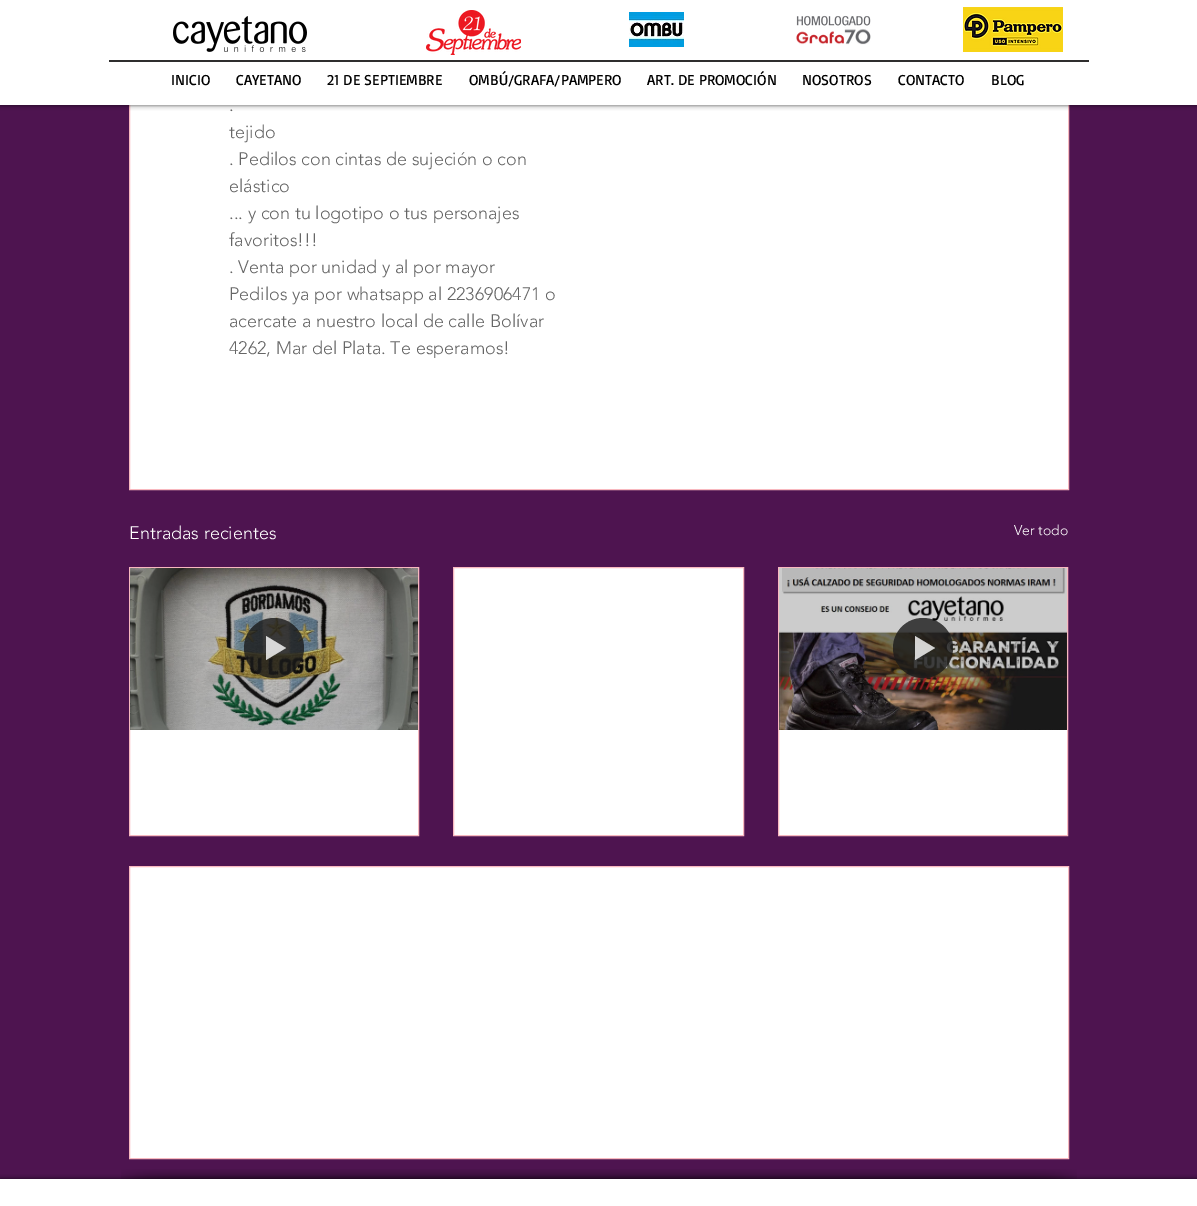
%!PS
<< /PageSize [1197 1206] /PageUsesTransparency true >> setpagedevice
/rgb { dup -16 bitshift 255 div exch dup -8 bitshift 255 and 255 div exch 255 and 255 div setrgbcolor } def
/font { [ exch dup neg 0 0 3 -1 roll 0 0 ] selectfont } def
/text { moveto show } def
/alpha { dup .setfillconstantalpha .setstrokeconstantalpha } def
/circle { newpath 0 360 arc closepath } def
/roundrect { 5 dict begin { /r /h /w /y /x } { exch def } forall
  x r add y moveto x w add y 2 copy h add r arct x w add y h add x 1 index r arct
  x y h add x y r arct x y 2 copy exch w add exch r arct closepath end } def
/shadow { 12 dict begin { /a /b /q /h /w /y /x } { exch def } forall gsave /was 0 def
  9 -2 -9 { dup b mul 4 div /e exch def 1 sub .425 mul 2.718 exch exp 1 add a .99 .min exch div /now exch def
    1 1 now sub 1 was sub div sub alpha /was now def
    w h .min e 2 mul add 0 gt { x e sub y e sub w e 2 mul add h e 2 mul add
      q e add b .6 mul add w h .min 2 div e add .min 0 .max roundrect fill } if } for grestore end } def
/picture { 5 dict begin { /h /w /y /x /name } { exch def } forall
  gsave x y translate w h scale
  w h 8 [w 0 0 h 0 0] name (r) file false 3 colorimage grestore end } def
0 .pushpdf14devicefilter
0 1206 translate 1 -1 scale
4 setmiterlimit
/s1 { /Basic-Regular 15 font 16#000000 rgb } def
/s2 { /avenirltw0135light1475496-Light 18 font 16#666666 rgb } def
/s3 { /avenirltw0135light1475496-Light 18 font 16#FFFFFF rgb } def
/s4 { /avenirltw0135light1475496-Light 14 font 16#FFFFFF rgb } def
16#FFFFFF rgb
0 0 1197 1206 rectfill
16#4E1450 rgb
0 105 1197 1074 rectfill
16#FFFFFF rgb
130 105 938 384 rectfill
16#F8B8BF rgb
129.5 -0.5 939 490 rectstroke
16#000000 rgb
0 0 1197 105 0 2.5 0.7 shadow
16#FFFFFF rgb
0 0 1197 105 rectfill
(pic1.raw) 173 16 134 36 picture
(pic2.raw) 426 10 95 45 picture
(pic3.raw) 629 12 55 35 picture
(pic4.raw) 796 15 75 30 picture
(pic5.raw) 963 7 100 45 picture
16#2F2E2E rgb
109 60 980 2 rectfill
s1
(INICIO) 171 85 text
(CAYETANO) 236 85 text
(21 DE SEPTIEMBRE) 327 85 text
(OMBÚ/GRAFA/PAMPERO) 469 85 text
(ART. DE PROMOCIÓN) 647 85 text
(NOSOTROS) 802 85 text
(CONTACTO) 898 85 text
(BLOG) 991 85 text
s2
(.) 229 111 text
(tejido) 229 138 text
(. Pedilos con cintas de sujeción o con) 229 165 text
(elástico) 229 192 text
(... y con tu logotipo o tus personajes) 229 219 text
(favoritos!!!) 229 246 text
(. Venta por unidad y al por mayor) 229 273 text
(Pedilos ya por whatsapp al 2236906471 o) 229 300 text
(acercate a nuestro local de calle Bolívar) 229 327 text
(4262, Mar del Plata. Te esperamos!) 229 354 text
s3
(Entradas recientes) 129 539 text
s4
(Ver todo) 1014 535 text
130 730 288 105 rectfill
16#F8B8BF rgb
129.5 567.5 289 268 rectstroke
(pic6.raw) 130 568 288 162 picture
0.8 alpha
16#1A1A1A rgb
274 648 30 circle fill
16#FFFFFF rgb
266 636 moveto 266 660 lineto 286 648 lineto closepath fill
1 alpha
453.5 567.5 moveto 743.5 567.5 lineto 743.5 835.5 lineto 453.5 835.5 lineto closepath gsave fill grestore
16#F8B8BF rgb
stroke
16#FFFFFF rgb
779 730 288 105 rectfill
16#F8B8BF rgb
778.5 567.5 289 268 rectstroke
(pic7.raw) 779 568 288 162 picture
0.8 alpha
16#1A1A1A rgb
923 648 30 circle fill
16#FFFFFF rgb
915 636 moveto 915 660 lineto 935 648 lineto closepath fill
1 alpha
129.5 866.5 moveto 1068.5 866.5 lineto 1068.5 1158.5 lineto 129.5 1158.5 lineto closepath gsave fill grestore
16#F8B8BF rgb
stroke
gsave
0 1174 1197 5 rectclip
16#000000 rgb
0 1179 1197 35 0 2.5 0.7 shadow
grestore
(pic8.raw) 121 1169 88 10 picture
(pic9.raw) 209 1169 780 10 picture
(pic10.raw) 989 1169 88 10 picture
.poppdf14devicefilter showpage
